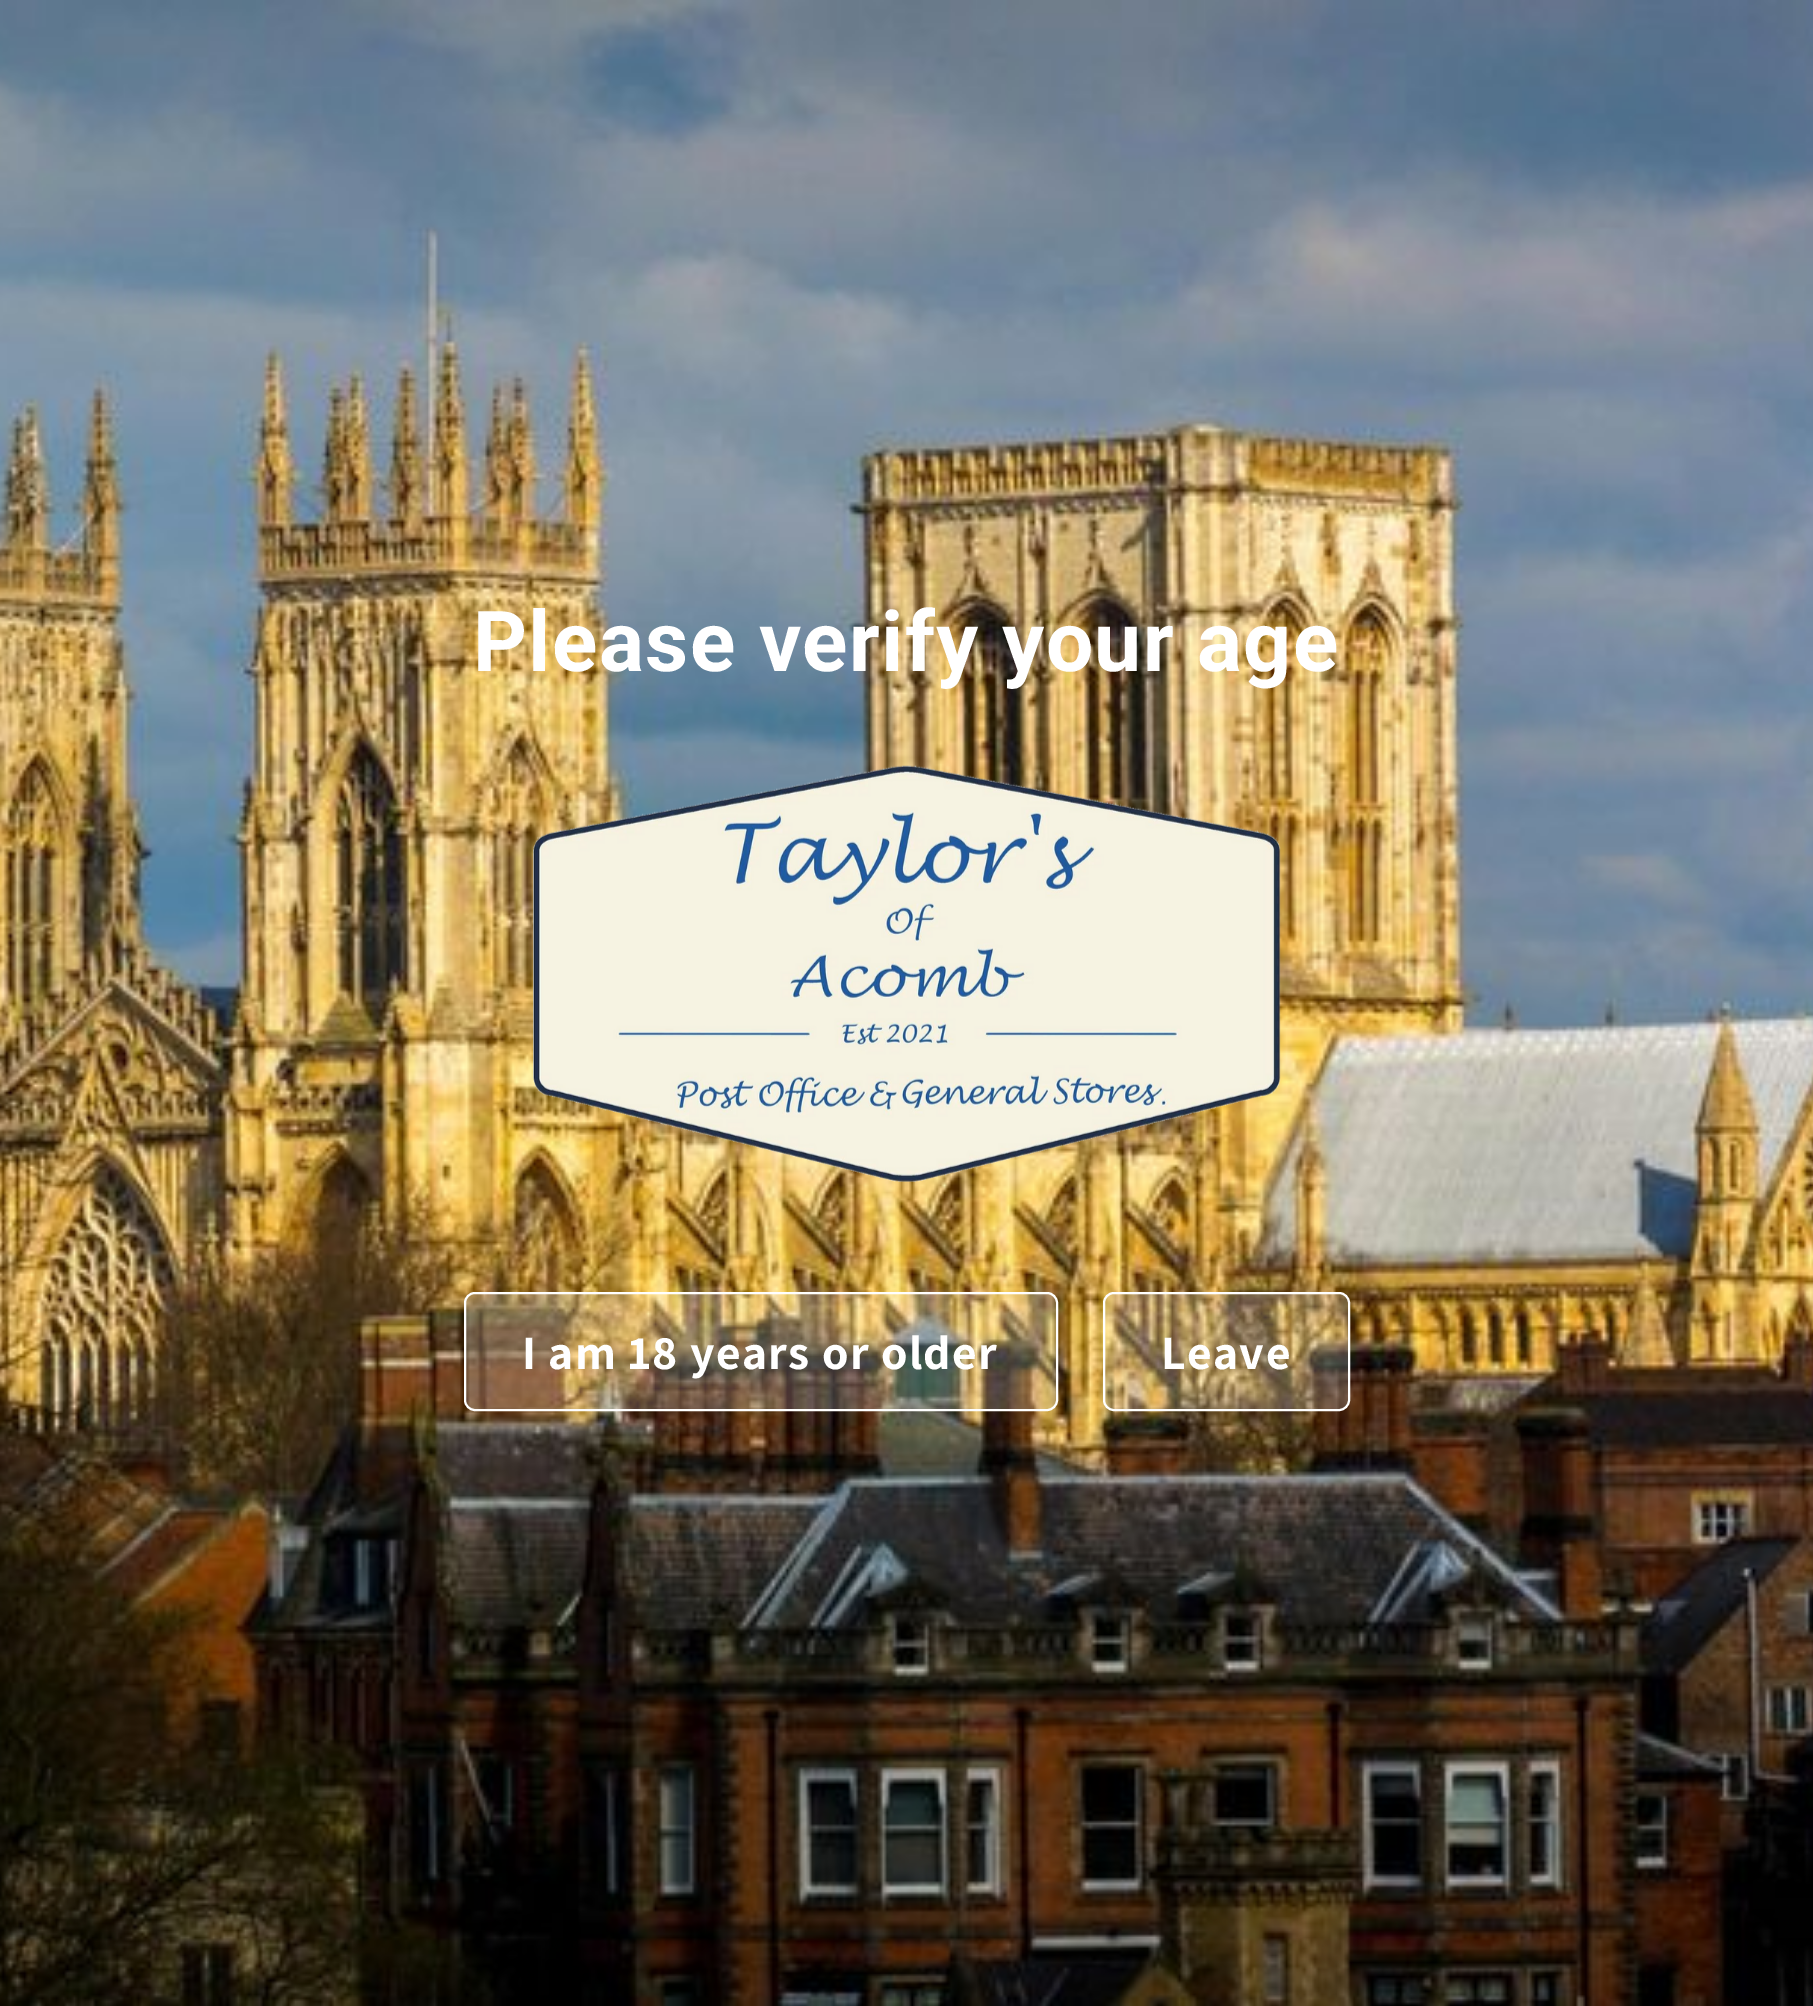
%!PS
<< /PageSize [1813 2006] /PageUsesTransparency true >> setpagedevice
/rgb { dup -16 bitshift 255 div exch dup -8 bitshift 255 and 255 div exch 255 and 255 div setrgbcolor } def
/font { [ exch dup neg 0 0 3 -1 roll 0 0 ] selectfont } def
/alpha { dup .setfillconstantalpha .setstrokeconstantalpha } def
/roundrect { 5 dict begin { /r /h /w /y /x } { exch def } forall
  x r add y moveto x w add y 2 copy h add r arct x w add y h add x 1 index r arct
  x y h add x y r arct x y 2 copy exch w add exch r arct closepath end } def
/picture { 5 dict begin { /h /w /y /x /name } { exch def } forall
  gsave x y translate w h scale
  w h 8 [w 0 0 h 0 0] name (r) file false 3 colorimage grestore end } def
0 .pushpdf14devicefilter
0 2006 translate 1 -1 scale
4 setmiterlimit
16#FFFFFF rgb
0 0 1813 2006 rectfill
(pic1.raw) 0 0 1813 2006 picture
/Roboto-Bold 84 font
473 671 moveto 1.35 0 (Please verify your age) ashow
(pic2.raw) 533 765 748 417 picture
0.2 alpha
465 1293 592 117 10 roundrect fill
1 alpha
2 setlinewidth
465 1293 592 117 10 roundrect stroke
/Assistant-Bold 48 font
522 1369 moveto 1.35 0 (I am 18 years or older) ashow
0.2 alpha
1104 1293 245 117 10 roundrect fill
1 alpha
1104 1293 245 117 10 roundrect stroke
1161 1369 moveto 1.35 0 (Leave) ashow
.poppdf14devicefilter showpage
